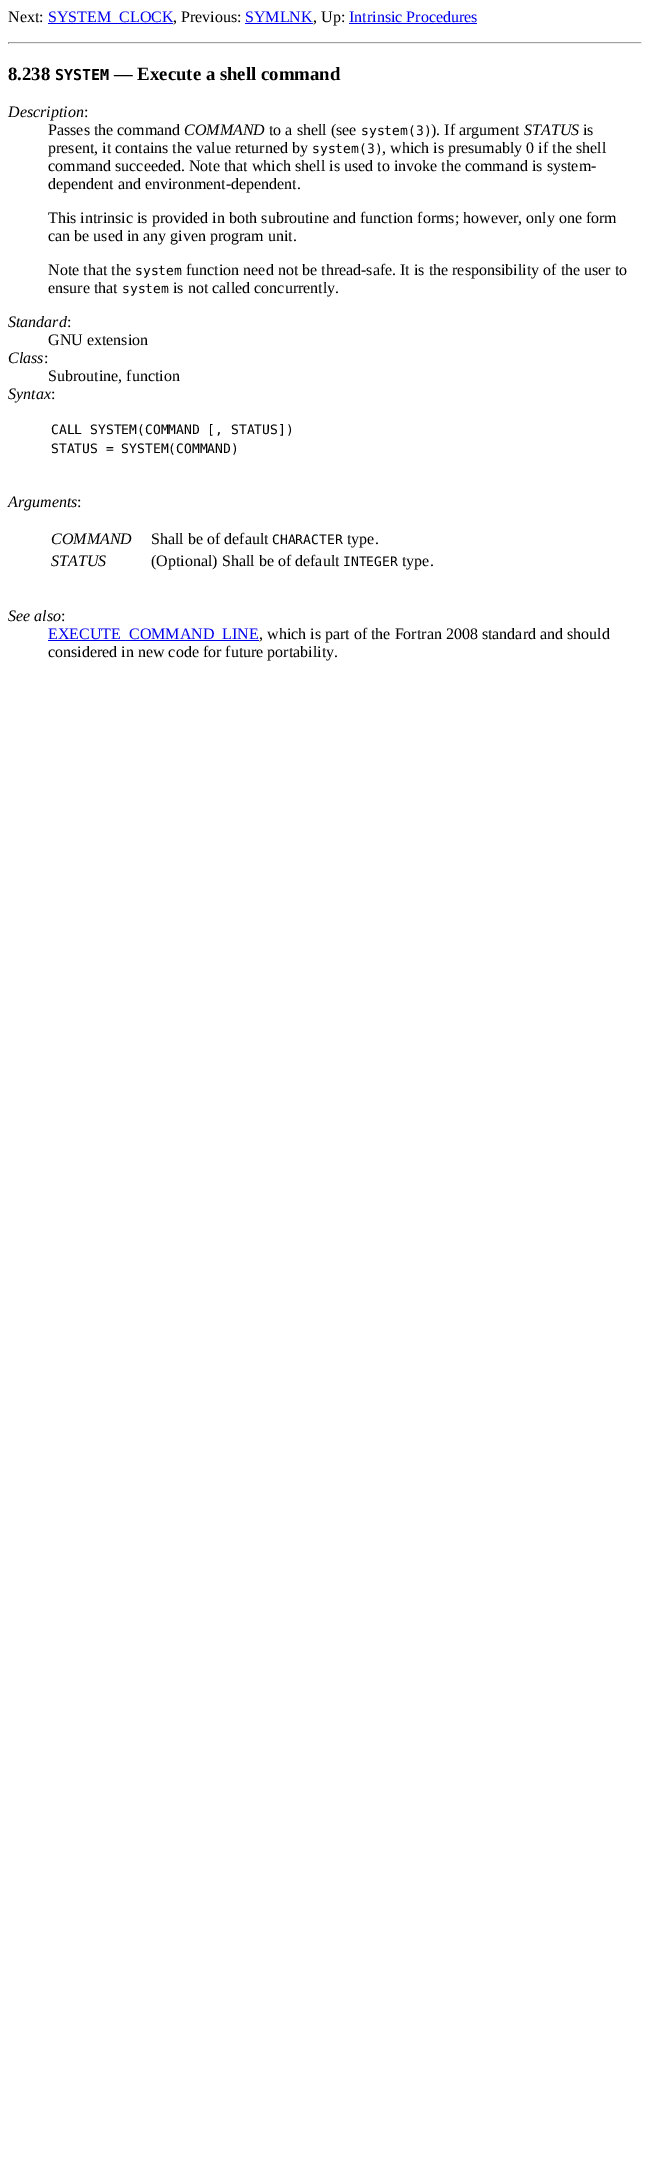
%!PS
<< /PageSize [650 2176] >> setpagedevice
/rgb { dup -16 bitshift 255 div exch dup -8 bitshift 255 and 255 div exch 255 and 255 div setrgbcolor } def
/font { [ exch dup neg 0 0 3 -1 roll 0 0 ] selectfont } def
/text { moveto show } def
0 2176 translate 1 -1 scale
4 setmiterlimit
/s1 { /LiberationSerif-Regular 16 font 16#000000 rgb } def
/s2 { /LiberationSerif-Regular 16 font 16#0000EE rgb } def
/s3 { /LiberationSerif-Bold 18.75 font 16#000000 rgb } def
/s4 { /DejaVuSansMono-Bold 15 font 16#000000 rgb } def
/s5 { /LiberationSerif-Italic 16 font 16#000000 rgb } def
/s6 { /DejaVuSansMono-Regular 13 font 16#000000 rgb } def
16#FFFFFF rgb
0 0 650 2176 rectfill
s1
(Next:) 8 22 text
16#0000EE rgb
48 23 125 1 rectfill
(SYSTEM_CLOCK) 48 22 text
s1
(, Previous:) 173 22 text
s2
(SYMLNK) 245 22 text
245 23 68 1 rectfill
s1
(, Up:) 313 22 text
s2
(Intrinsic Procedures) 349 22 text
349 23 128 1 rectfill
16#9F9F9F rgb
8 42 634 1 rectfill
16#EEEEEE rgb
641 42 1 2 rectfill
8 43 634 1 rectfill
16#9F9F9F rgb
8 42 1 2 rectfill
s3
(8.238) 8 80 text
s4
(SYSTEM) 55 80 text
s3
(— Execute a shell command) 114 80 text
s5
(Description) 8 117 text
s1
(:) 84 117 text
(Passes the command) 48 135 text
s5
(COMMAND) 184 135 text
s1
(to a shell \(see) 269 135 text
s6
(system\(3\)) 361 135 text
s1
(\). If argument) 431 135 text
s5
(STATUS) 524 135 text
s1
(is) 583 135 text
(present, it contains the value returned by) 48 153 text
s6
(system\(3\)) 312 153 text
s1
(, which is presumably 0 if the shell) 382 153 text
(command succeeded. Note that which shell is used to invoke the command is system-) 48 171 text
(dependent and environment-dependent.) 48 189 text
(This intrinsic is provided in both subroutine and function forms; however, only one form) 48 223 text
(can be used in any given program unit.) 48 241 text
(Note that the) 48 275 text
s6
(system) 135 275 text
s1
(function need not be thread-safe. It is the responsibility of the user to) 186 275 text
(ensure that) 48 293 text
s6
(system) 122 293 text
s1
(is not called concurrently.) 173 293 text
s5
(Standard) 8 327 text
s1
(:) 67 327 text
(GNU extension) 48 345 text
s5
(Class) 8 363 text
s1
(:) 44 363 text
(Subroutine, function) 48 381 text
s5
(Syntax) 8 399 text
s1
(:) 51 399 text
s6
(CALL SYSTEM\(COMMAND [, STATUS]\)) 51 434 text
(STATUS = SYSTEM\(COMMAND\)) 51 453 text
s5
(Arguments) 8 507 text
s1
(:) 77 507 text
s5
(COMMAND) 51 544 text
s1
(Shall be of default) 151 544 text
s6
(CHARACTER) 272 544 text
s1
(type.) 347 544 text
s5
(STATUS) 51 566 text
s1
(\(Optional\) Shall be of default) 151 566 text
s6
(INTEGER) 343 566 text
s1
(type.) 402 566 text
s5
(See also) 8 621 text
s1
(:) 61 621 text
16#0000EE rgb
48 640 211 1 rectfill
(EXECUTE_COMMAND_LINE) 48 639 text
s1
(, which is part of the Fortran 2008 standard and should) 259 639 text
(considered in new code for future portability.) 48 657 text
showpage
